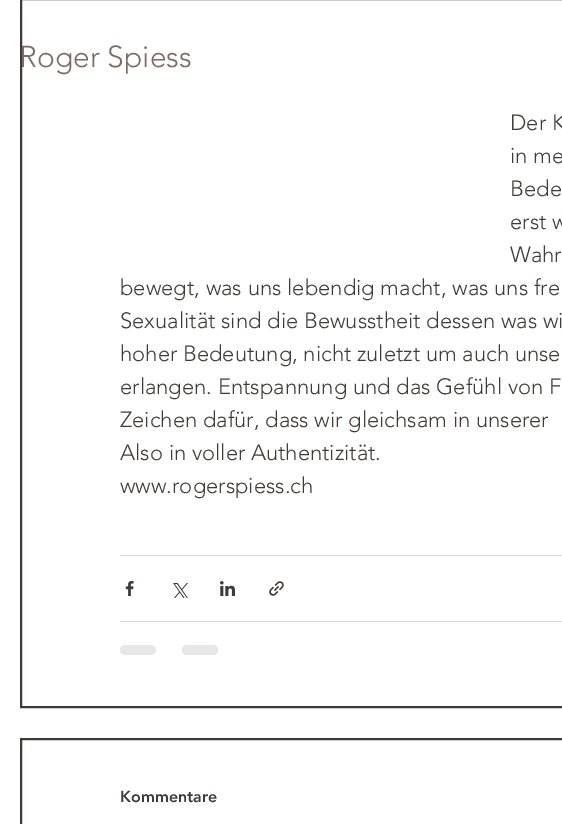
%!PS
<< /PageSize [562 824] >> setpagedevice
/rgb { dup -16 bitshift 255 div exch dup -8 bitshift 255 and 255 div exch 255 and 255 div setrgbcolor } def
/font { [ exch dup neg 0 0 3 -1 roll 0 0 ] selectfont } def
/text { moveto show } def
/roundrect { 5 dict begin { /r /h /w /y /x } { exch def } forall
  x r add y moveto x w add y 2 copy h add r arct x w add y h add x 1 index r arct
  x y h add x y r arct x y 2 copy exch w add exch r arct closepath end } def
/picture { 5 dict begin { /h /w /y /x /name } { exch def } forall
  gsave x y translate w h scale
  w h 8 [w 0 0 h 0 0] name (r) file false 3 colorimage grestore end } def
0 824 translate 1 -1 scale
4 setmiterlimit
/s1 { /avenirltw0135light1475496-Light 30 font 16#7E6B63 rgb } def
/s2 { /avenirltw0135light1475496-Light 22 font 16#413A38 rgb } def
/s3 { /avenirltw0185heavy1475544-Black 16 font 16#413A38 rgb } def
16#FFFFFF rgb
0 0 562 824 rectfill
16#413A38 rgb
2 setlinewidth
21 -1 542 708 rectstroke
s1
(Roger Spiess) 19 67 text
s2
(Der K) 510 130 text
(in me) 510 163 text
(Bede) 510 196 text
(erst w) 510 229 text
(Wahr) 510 262 text
(bewegt, was uns lebendig macht, was uns fre) 120 295 text
(Sexualität sind die Bewusstheit dessen was wi) 120 328 text
(hoher Bedeutung, nicht zuletzt um auch unse) 120 361 text
(erlangen. Entspannung und das Gefühl von F) 120 394 text
(Zeichen dafür, dass wir gleichsam in unserer) 120 427 text
(Also in voller Authentizität.) 120 460 text
(www.rogerspiess.ch) 120 493 text
16#D9D8D7 rgb
120 555 442 1 rectfill
(pic1.raw) 125 581 9 15 picture
(pic2.raw) 173 583 15 15 picture
(pic3.raw) 220 581 15 15 picture
(pic4.raw) 269 581 15 15 picture
120 621 442 1 rectfill
16#E8E7E7 rgb
120 645 36 10 5 roundrect fill
182 645 36 10 5 roundrect fill
16#413A38 rgb
21 739 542 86 rectstroke
s3
(Kommentare) 120 802 text
showpage
